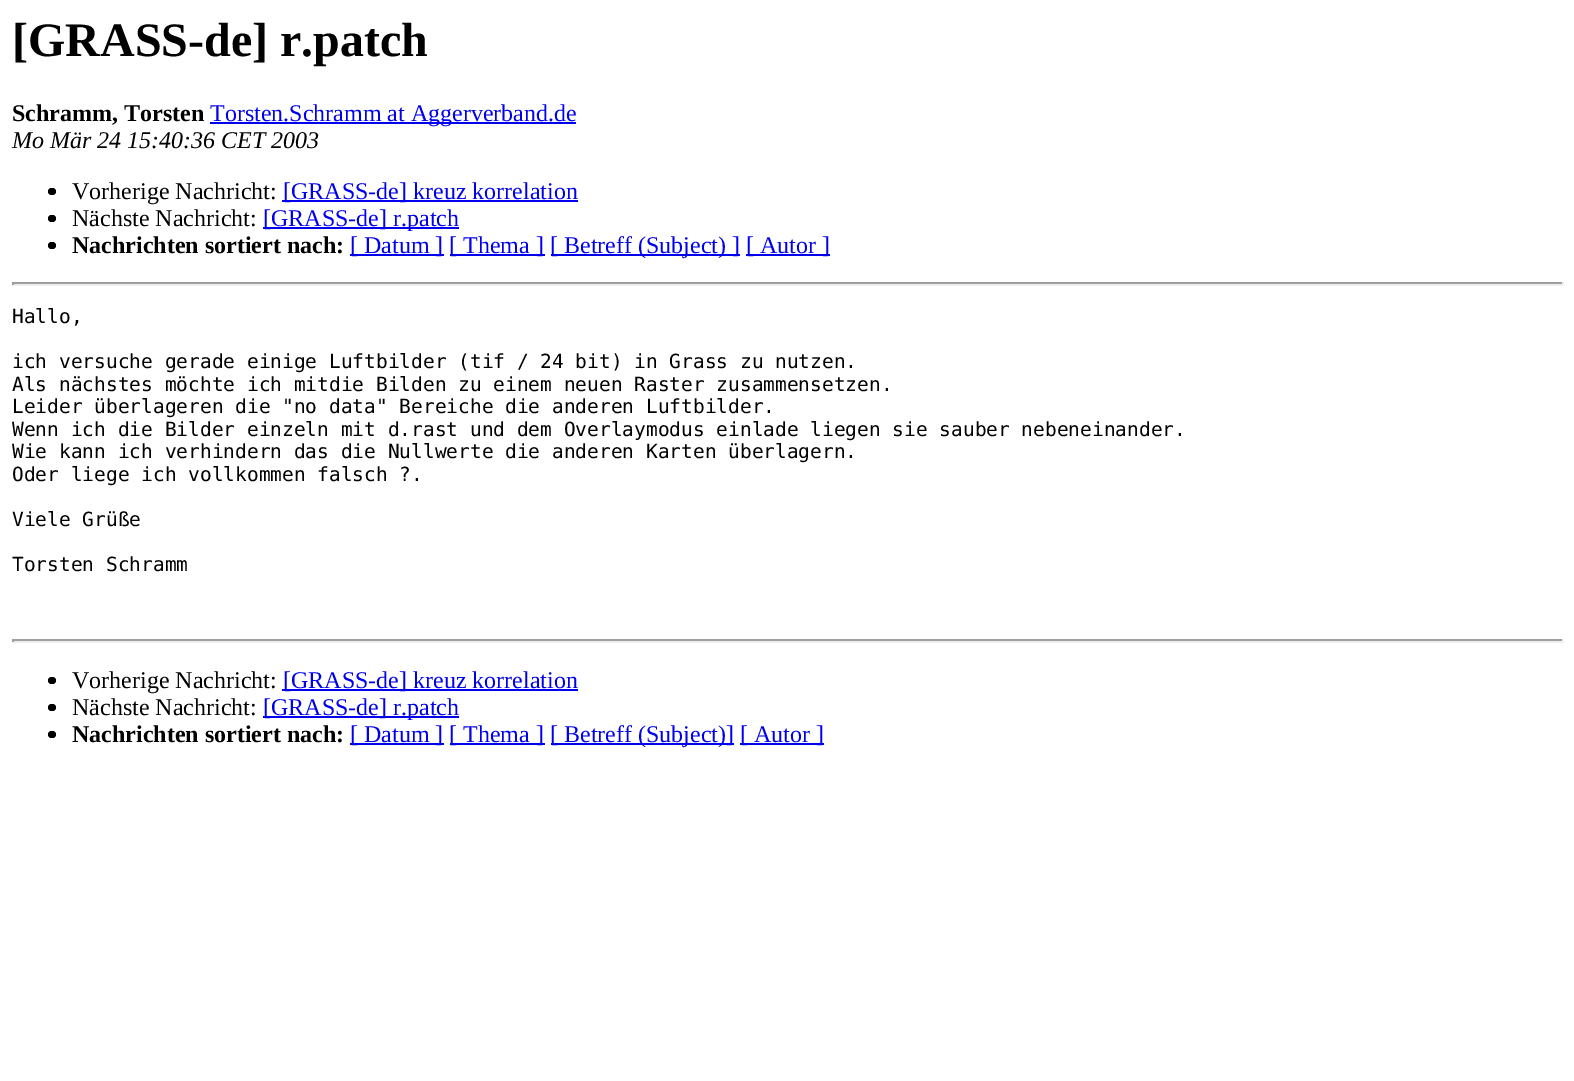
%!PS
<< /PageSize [1574 1081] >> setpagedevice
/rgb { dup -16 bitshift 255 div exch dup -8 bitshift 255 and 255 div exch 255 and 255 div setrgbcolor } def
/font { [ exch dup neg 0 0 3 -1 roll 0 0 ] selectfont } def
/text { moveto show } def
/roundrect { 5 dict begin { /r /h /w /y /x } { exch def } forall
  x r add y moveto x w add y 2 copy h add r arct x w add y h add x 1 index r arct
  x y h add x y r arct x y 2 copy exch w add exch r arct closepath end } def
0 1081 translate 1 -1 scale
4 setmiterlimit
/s1 { /LiberationSerif-Bold 48 font 16#000000 rgb } def
/s2 { /LiberationSerif-Bold 24 font 16#000000 rgb } def
/s3 { /LiberationSerif-Regular 24 font 16#0000EE rgb } def
/s4 { /LiberationSerif-Italic 24 font 16#000000 rgb } def
/s5 { /LiberationSerif-Regular 24 font 16#000000 rgb } def
/s6 { /DejaVuSansMono-Regular 19.5 font 16#000000 rgb } def
16#FFFFFF rgb
0 0 1574 1081 rectfill
s1
([GRASS-de] r.patch) 12 56 text
s2
(Schramm, Torsten) 12 121 text
16#0000EE rgb
210 122 366 2 rectfill
s3
(Torsten.Schramm at Aggerverband.de) 210 121 text
s4
(Mo Mär 24 15:40:36 CET 2003) 12 148 text
48 188 8 7 3.5 roundrect fill
s5
(Vorherige Nachricht:) 72 199 text
16#0000EE rgb
282 200 296 2 rectfill
([GRASS-de] kreuz korrelation) 283 199 text
16#000000 rgb
48 215 8 7 3.5 roundrect fill
(Nächste Nachricht:) 72 226 text
16#0000EE rgb
263 227 196 2 rectfill
([GRASS-de] r.patch) 263 226 text
16#000000 rgb
48 242 8 7 3.5 roundrect fill
s2
(Nachrichten sortiert nach:) 72 253 text
16#0000EE rgb
350 254 94 2 rectfill
s3
([ Datum ]) 350 253 text
450 254 95 2 rectfill
([ Thema ]) 449 253 text
551 254 189 2 rectfill
([ Betreff \(Subject\) ]) 550 253 text
746 254 84 2 rectfill
([ Autor ]) 746 253 text
16#9F9F9F rgb
12 282 1551 2 rectfill
16#EEEEEE rgb
1562 282 2 3 rectfill
12 284 1551 2 rectfill
16#9F9F9F rgb
12 282 2 3 rectfill
s6
(Hallo,) 12 323 text
(ich versuche gerade einige Luftbilder \(tif / 24 bit\) in Grass zu nutzen.) 12 368 text
(Als nächstes möchte ich mitdie Bilden zu einem neuen Raster zusammensetzen.) 12 391 text
(Leider überlageren die "no data" Bereiche die anderen Luftbilder.) 12 413 text
(Wenn ich die Bilder einzeln mit d.rast und dem Overlaymodus einlade liegen sie sauber nebeneinander.) 12 436 text
(Wie kann ich verhindern das die Nullwerte die anderen Karten überlagern.) 12 458 text
(Oder liege ich vollkommen falsch ?.) 12 481 text
(Viele Grüße) 12 526 text
(Torsten Schramm) 12 571 text
16#9F9F9F rgb
12 639 1551 2 rectfill
16#EEEEEE rgb
1562 639 2 3 rectfill
12 641 1551 2 rectfill
16#9F9F9F rgb
12 639 2 3 rectfill
16#000000 rgb
48 677 8 7 3.5 roundrect fill
s5
(Vorherige Nachricht:) 72 688 text
16#0000EE rgb
282 689 296 2 rectfill
([GRASS-de] kreuz korrelation) 283 688 text
16#000000 rgb
48 704 8 7 3.5 roundrect fill
(Nächste Nachricht:) 72 715 text
16#0000EE rgb
263 716 196 2 rectfill
([GRASS-de] r.patch) 263 715 text
16#000000 rgb
48 731 8 7 3.5 roundrect fill
s2
(Nachrichten sortiert nach:) 72 742 text
16#0000EE rgb
350 743 94 2 rectfill
s3
([ Datum ]) 350 742 text
450 743 95 2 rectfill
([ Thema ]) 449 742 text
551 743 183 2 rectfill
([ Betreff \(Subject\)]) 550 742 text
740 743 84 2 rectfill
([ Autor ]) 740 742 text
showpage
